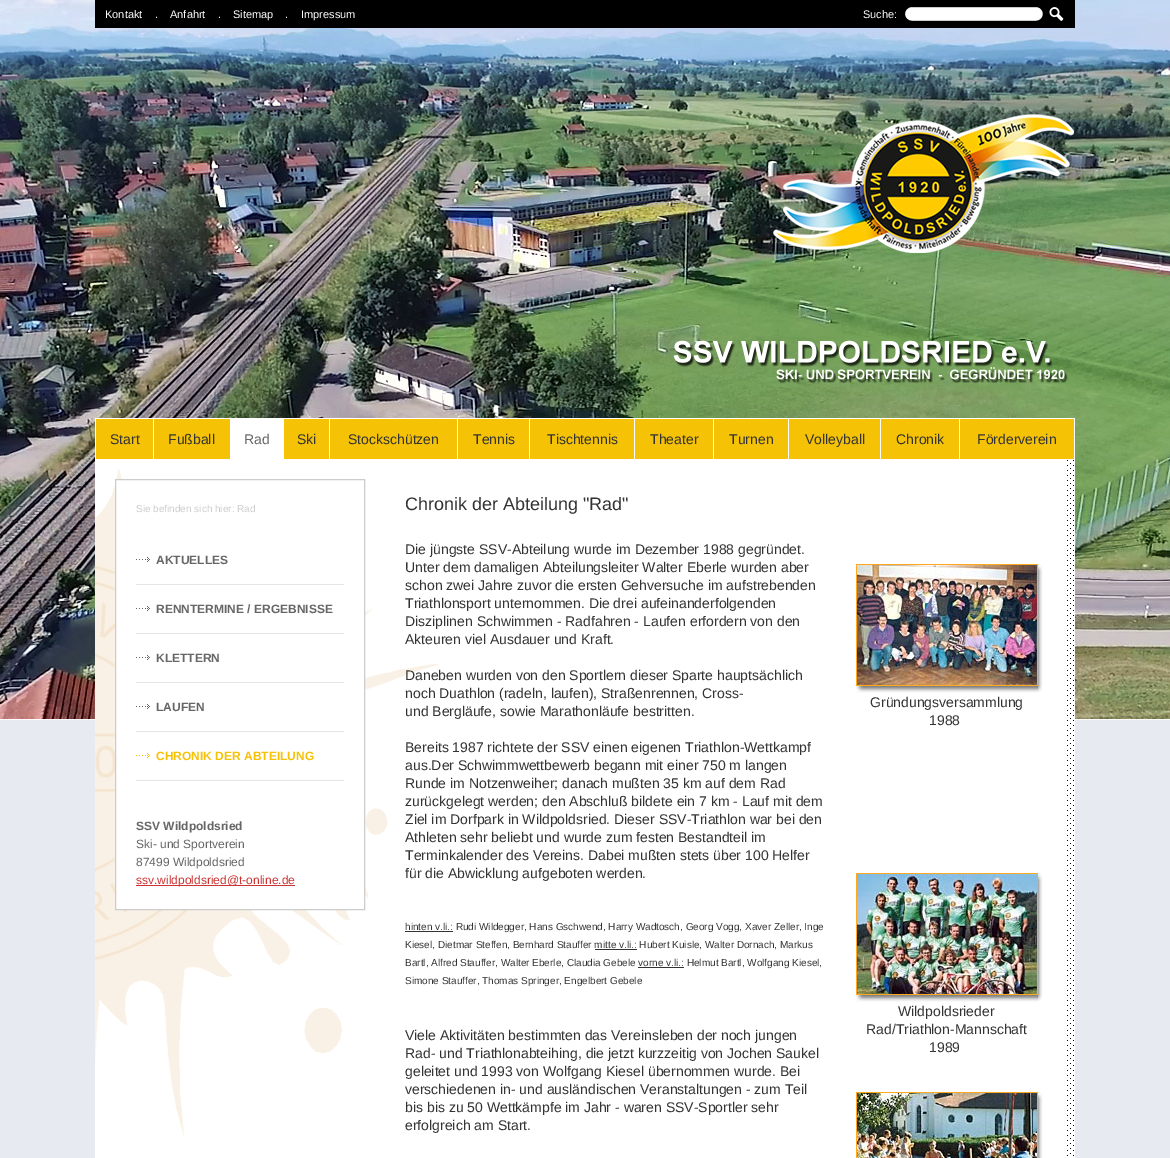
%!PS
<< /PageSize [1170 1158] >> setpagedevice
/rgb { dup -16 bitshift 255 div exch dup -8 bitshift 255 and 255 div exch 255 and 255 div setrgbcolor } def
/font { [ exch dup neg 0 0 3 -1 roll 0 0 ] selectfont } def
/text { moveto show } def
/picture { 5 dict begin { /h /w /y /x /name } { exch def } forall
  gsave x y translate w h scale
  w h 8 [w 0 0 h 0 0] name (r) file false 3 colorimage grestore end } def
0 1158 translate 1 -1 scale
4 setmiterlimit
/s1 { /LiberationSans-Regular 11 font 16#FFFFFF rgb } def
/s2 { /LiberationSans-Regular 14 font 16#333333 rgb } def
/s3 { /LiberationSans-Regular 14 font 16#666666 rgb } def
/s4 { /LiberationSans-Regular 10 font 16#CCCCCC rgb } def
/s5 { /LiberationSans-Bold 12 font 16#666666 rgb } def
/s6 { /LiberationSans-Bold 12 font 16#F5C205 rgb } def
/s7 { /LiberationSans-Regular 12 font 16#666666 rgb } def
/s8 { /LiberationSans-Regular 12 font 16#CC3333 rgb } def
/s9 { /LiberationSans-Regular 18 font 16#333333 rgb } def
/s10 { /LiberationSans-Regular 10 font 16#333333 rgb } def
16#E8EAF2 rgb
0 0 1170 1158 rectfill
(pic1.raw) 0 0 1170 720 picture
16#000000 rgb
95 0 980 28 rectfill
s1
(Kontakt) 105 18 text
(.) 155 18 text
(Anfahrt) 170 18 text
(.) 218 18 text
(Sitemap) 233 18 text
(.) 285 18 text
(Impressum) 301 18 text
(Suche:) 863 18 text
(pic2.raw) 905 7 138 14 picture
(pic3.raw) 1049 7 15 14 picture
(pic4.raw) 773 114 301 139 picture
(pic5.raw) 673 340 395 44 picture
95 418 980 1 rectfill
16#F5C205 rgb
96 419 978 40 rectfill
16#FFFFFF rgb
95 419 1 40 rectfill
153 419 1 40 rectfill
s2
(Fußball) 168 444 text
16#FFFFFF rgb
230 419 54 40 rectfill
329 419 1 40 rectfill
457 419 1 40 rectfill
529 419 1 40 rectfill
634 419 1 40 rectfill
713 419 1 40 rectfill
788 419 1 40 rectfill
880 419 1 40 rectfill
959 419 1 40 rectfill
1074 419 1 40 rectfill
s2
(Start) 110 444 text
s3
(Rad) 244 444 text
s2
(Ski) 297 444 text
(Stockschützen) 348 444 text
(Tennis) 473 444 text
(Tischtennis) 547 444 text
(Theater) 650 444 text
(Turnen) 729 444 text
(Volleyball) 805 444 text
(Chronik) 896 444 text
(Förderverein) 977 444 text
16#FFFFFF rgb
95 459 980 699 rectfill
(pic6.raw) 95 460 979 696 picture
115.5 479.5 moveto 364.5 479.5 lineto 364.5 909.5 lineto 115.5 909.5 lineto closepath gsave fill grestore
16#CCCCCC rgb
stroke
s4
(Sie befinden sich hier: Rad) 136 512 text
(pic7.raw) 136 557 14 5 picture
s5
(AKTUELLES) 156 564 text
16#E5E5E5 rgb
136 584 208 1 rectfill
(pic7.raw) 136 606 14 5 picture
s5
(RENNTERMINE / ERGEBNISSE) 156 613 text
16#E5E5E5 rgb
136 633 208 1 rectfill
(pic7.raw) 136 655 14 5 picture
s5
(KLETTERN) 156 662 text
16#E5E5E5 rgb
136 682 208 1 rectfill
(pic7.raw) 136 704 14 5 picture
s5
(LAUFEN) 156 711 text
16#E5E5E5 rgb
136 731 208 1 rectfill
(pic8.raw) 136 753 14 5 picture
s6
(CHRONIK DER ABTEILUNG) 156 760 text
16#E5E5E5 rgb
136 780 208 1 rectfill
s5
(SSV Wildpoldsried) 136 830 text
s7
(Ski- und Sportverein) 136 848 text
(87499 Wildpoldsried) 136 866 text
16#CC3333 rgb
136 885 159 1 rectfill
(ssv.wildpoldsried@t-online.de) 136 884 text
s9
(Chronik der Abteilung "Rad") 405 510 text
s2
(Die jüngste SSV-Abteilung wurde im Dezember 1988 gegründet.) 405 554 text
(Unter dem damaligen Abteilungsleiter Walter Eberle wurden aber) 405 572 text
(schon zwei Jahre zuvor die ersten Gehversuche im aufstrebenden) 405 590 text
(Triathlonsport unternommen. Die drei aufeinanderfolgenden) 405 608 text
(Disziplinen Schwimmen - Radfahren - Laufen erfordern von den) 405 626 text
(Akteuren viel Ausdauer und Kraft.) 405 644 text
(Daneben wurden von den Sportlern dieser Sparte hauptsächlich) 405 680 text
(noch Duathlon \(radeln, laufen\), Straßenrennen, Cross-) 405 698 text
(und Bergläufe, sowie Marathonläufe bestritten.) 405 716 text
16#FEA920 rgb
856 564 182 122 rectfill
(pic9.raw) 857 565 180 120 picture
(pic10.raw) 1038 571 5 115 picture
(pic11.raw) 1038 564 5 7 picture
(pic12.raw) 856 686 182 7 picture
(pic13.raw) 856 686 7 6 picture
(pic14.raw) 1038 686 4 6 picture
s2
(Gründungsversammlung) 870 707 text
(1988) 929 725 text
16#FEA920 rgb
856 873 182 122 rectfill
(pic15.raw) 857 874 180 120 picture
(pic10.raw) 1038 880 5 115 picture
(pic11.raw) 1038 873 5 7 picture
(pic12.raw) 856 995 182 7 picture
(pic13.raw) 856 995 7 6 picture
(pic14.raw) 1038 995 4 6 picture
s2
(Wildpoldsrieder) 898 1016 text
(Rad/Triathlon-Mannschaft) 866 1034 text
(1989) 929 1052 text
16#FEA920 rgb
856 1092 182 66 rectfill
(pic16.raw) 857 1093 180 65 picture
(pic17.raw) 1038 1099 5 59 picture
(pic11.raw) 1038 1092 5 7 picture
s2
(Bereits 1987 richtete der SSV einen eigenen Triathlon-Wettkampf) 405 752 text
(aus.Der Schwimmwettbewerb begann mit einer 750 m langen) 405 770 text
(Runde im Notzenweiher; danach mußten 35 km auf dem Rad) 405 788 text
(zurückgelegt werden; den Abschluß bildete ein 7 km - Lauf mit dem) 405 806 text
(Ziel im Dorfpark in Wildpoldsried. Dieser SSV-Triathlon war bei den) 405 824 text
(Athleten sehr beliebt und wurde zum festen Bestandteil im) 405 842 text
(Terminkalender des Vereins. Dabei mußten stets über 100 Helfer) 405 860 text
(für die Abwicklung aufgeboten werden.) 405 878 text
405 931 48 1 rectfill
s10
(hinten v.li.: Rudi Wildegger, Hans Gschwend, Harry Wadtosch, Georg Vogg, Xaver Zeller, Inge) 405 930 text
(Kiesel, Dietmar Steffen, Bernhard Stauffer mitte v.li.: Hubert Kuisle, Walter Dornach, Markus) 405 948 text
595 949 42 1 rectfill
(Bartl, Alfred Stauffer, Walter Eberle, Claudia Gebele vorne v.li.: Helmut Bartl, Wolfgang Kiesel,) 405 966 text
638 967 46 1 rectfill
(Simone Stauffer, Thomas Springer, Engelbert Gebele) 405 984 text
s2
(Viele Aktivitäten bestimmten das Vereinsleben der noch jungen) 405 1040 text
(Rad- und Triathlonabteihing, die jetzt kurzzeitig von Jochen Saukel) 405 1058 text
(geleitet und 1993 von Wolfgang Kiesel übernommen wurde. Bei) 405 1076 text
(verschiedenen in- und ausländischen Veranstaltungen - zum Teil) 405 1094 text
(bis bis zu 50 Wettkämpfe im Jahr - waren SSV-Sportler sehr) 405 1112 text
(erfolgreich am Start.) 405 1130 text
showpage
